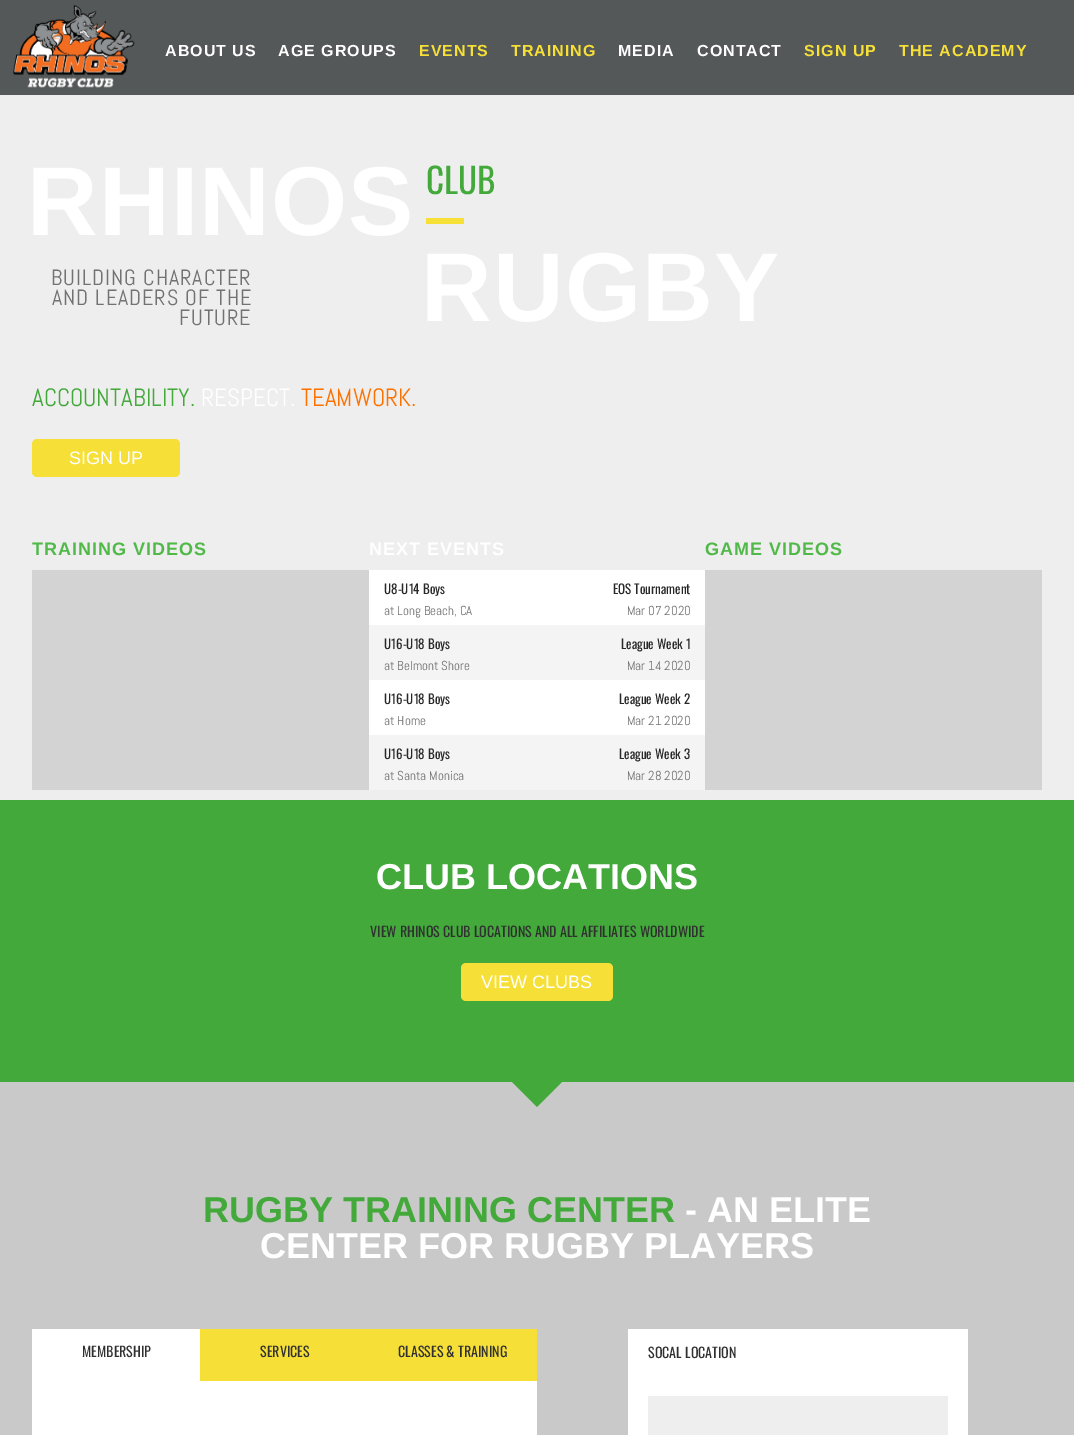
%!PS
<< /PageSize [1074 1435] >> setpagedevice
/rgb { dup -16 bitshift 255 div exch dup -8 bitshift 255 and 255 div exch 255 and 255 div setrgbcolor } def
/font { [ exch dup neg 0 0 3 -1 roll 0 0 ] selectfont } def
/text { moveto show } def
/roundrect { 5 dict begin { /r /h /w /y /x } { exch def } forall
  x r add y moveto x w add y 2 copy h add r arct x w add y h add x 1 index r arct
  x y h add x y r arct x y 2 copy exch w add exch r arct closepath end } def
/picture { 5 dict begin { /h /w /y /x /name } { exch def } forall
  gsave x y translate w h scale
  w h 8 [w 0 0 h 0 0] name (r) file false 3 colorimage grestore end } def
0 1435 translate 1 -1 scale
4 setmiterlimit
/s1 { /Oswald-Regular 35 font 16#42A93A rgb } def
/s2 { /Abel-Regular 25 font 16#42A93A rgb } def
/s3 { /Abel-Regular 25 font 16#FFFFFF rgb } def
/s4 { /Abel-Regular 25 font 16#FD7101 rgb } def
/s5 { /LiberationSans-Regular 18 font 16#FFFFFF rgb } def
/s6 { /Oswald-Regular 13 font 16#282828 rgb } def
/s7 { /Abel-Regular 13 font 16#727272 rgb } def
/s8 { /LiberationSans-Bold 36 font 16#FFFFFF rgb } def
/s9 { /Oswald-Regular 14 font 16#303030 rgb } def
/s10 { /LiberationSans-Bold 36 font 16#42A93A rgb } def
16#EEEEEE rgb
0 0 1074 1435 rectfill
16#555858 rgb
0 0 1074 95 rectfill
(pic1.raw) 13 5 122 83 picture
/LiberationSans-Bold 16 font
16#FFFFFF rgb
165 56 moveto 1 0 (ABOUT US) ashow
278 56 moveto 1 0 (AGE GROUPS) ashow
16#F6E038 rgb
419 56 moveto 1 0 (EVENTS) ashow
511 56 moveto 1 0 (TRAINING) ashow
16#FFFFFF rgb
618 56 moveto 1 0 (MEDIA) ashow
697 56 moveto 1 0 (CONTACT) ashow
16#F6E038 rgb
804 56 moveto 1 0 (SIGN UP) ashow
899 56 moveto 1 0 (THE ACADEMY) ashow
/LiberationSans-Bold 98 font
16#FFFFFF rgb
27 235 moveto 1 0 (RHINOS) ashow
/Abel-Regular 22 font
16#727272 rgb
51 285 moveto 1 0 (BUILDING CHARACTER) ashow
52 305 moveto 1 0 (AND LEADERS OF THE) ashow
179 325 moveto 1 0 (FUTURE) ashow
s1
(CLUB) 426 194 text
16#F6E038 rgb
426 218 38 6 rectfill
/LiberationSans-Bold 98 font
16#FFFFFF rgb
421 321 moveto 1 0 (RUGBY) ashow
s2
(ACCOUNTABILITY.) 32 406 text
s3
(RESPECT.) 201 406 text
s4
(TEAMWORK.) 301 406 text
16#F6E038 rgb
32 439 148 38 5 roundrect fill
s5
(SIGN UP) 69 464 text
/LiberationSans-Bold 18 font
16#50B948 rgb
32 555 moveto 1 0 (TRAINING VIDEOS) ashow
16#D3D3D3 rgb
32 570 337 220 rectfill
16#FFFFFF rgb
369 555 moveto 1 0 (NEXT EVENTS) ashow
369 570 336 165 rectfill
s6
(U8-U14 Boys) 384 594 text
(EOS Tournament) 613 594 text
s7
(at Long Beach, CA) 384 615 text
(Mar 07 2020) 627 615 text
16#F4F4F4 rgb
369 625 336 55 rectfill
s6
(U16-U18 Boys) 384 649 text
(League Week 1) 621 649 text
s7
(at Belmont Shore) 384 670 text
(Mar 14 2020) 627 670 text
s6
(U16-U18 Boys) 384 704 text
(League Week 2) 619 704 text
s7
(at Home) 384 725 text
(Mar 21 2020) 627 725 text
16#F4F4F4 rgb
369 735 336 55 rectfill
s6
(U16-U18 Boys) 384 759 text
(League Week 3) 619 759 text
s7
(at Santa Monica) 384 780 text
(Mar 28 2020) 627 780 text
/LiberationSans-Bold 18 font
16#50B948 rgb
705 555 moveto 1 0 (GAME VIDEOS) ashow
16#D3D3D3 rgb
705 570 337 220 rectfill
16#42A93A rgb
0 800 1074 282 rectfill
s8
(CLUB LOCATIONS) 376 889 text
s9
(VIEW RHINOS CLUB LOCATIONS AND ALL AFFILIATES WORLDWIDE) 370 937 text
16#F6E038 rgb
461 963 152 38 5 roundrect fill
s5
(VIEW CLUBS) 481 988 text
16#C9C9C9 rgb
0 1082 1074 353 rectfill
16#42A93A rgb
512 1082 moveto 562 1082 lineto 537 1107 lineto closepath fill
s10
(RUGBY TRAINING CENTER) 203 1222 text
s8
(- AN ELITE) 685 1222 text
(CENTER FOR RUGBY PLAYERS) 260 1258 text
32 1329 505 106 rectfill
s9
(MEMBERSHIP) 82 1357 text
16#F6E038 rgb
200 1329 337 52 rectfill
s9
(SERVICES) 260 1357 text
(CLASSES & TRAINING) 398 1357 text
16#FFFFFF rgb
628 1329 340 106 rectfill
s9
(SOCAL LOCATION) 648 1358 text
16#EEEEEE rgb
648 1396 300 39 rectfill
showpage
